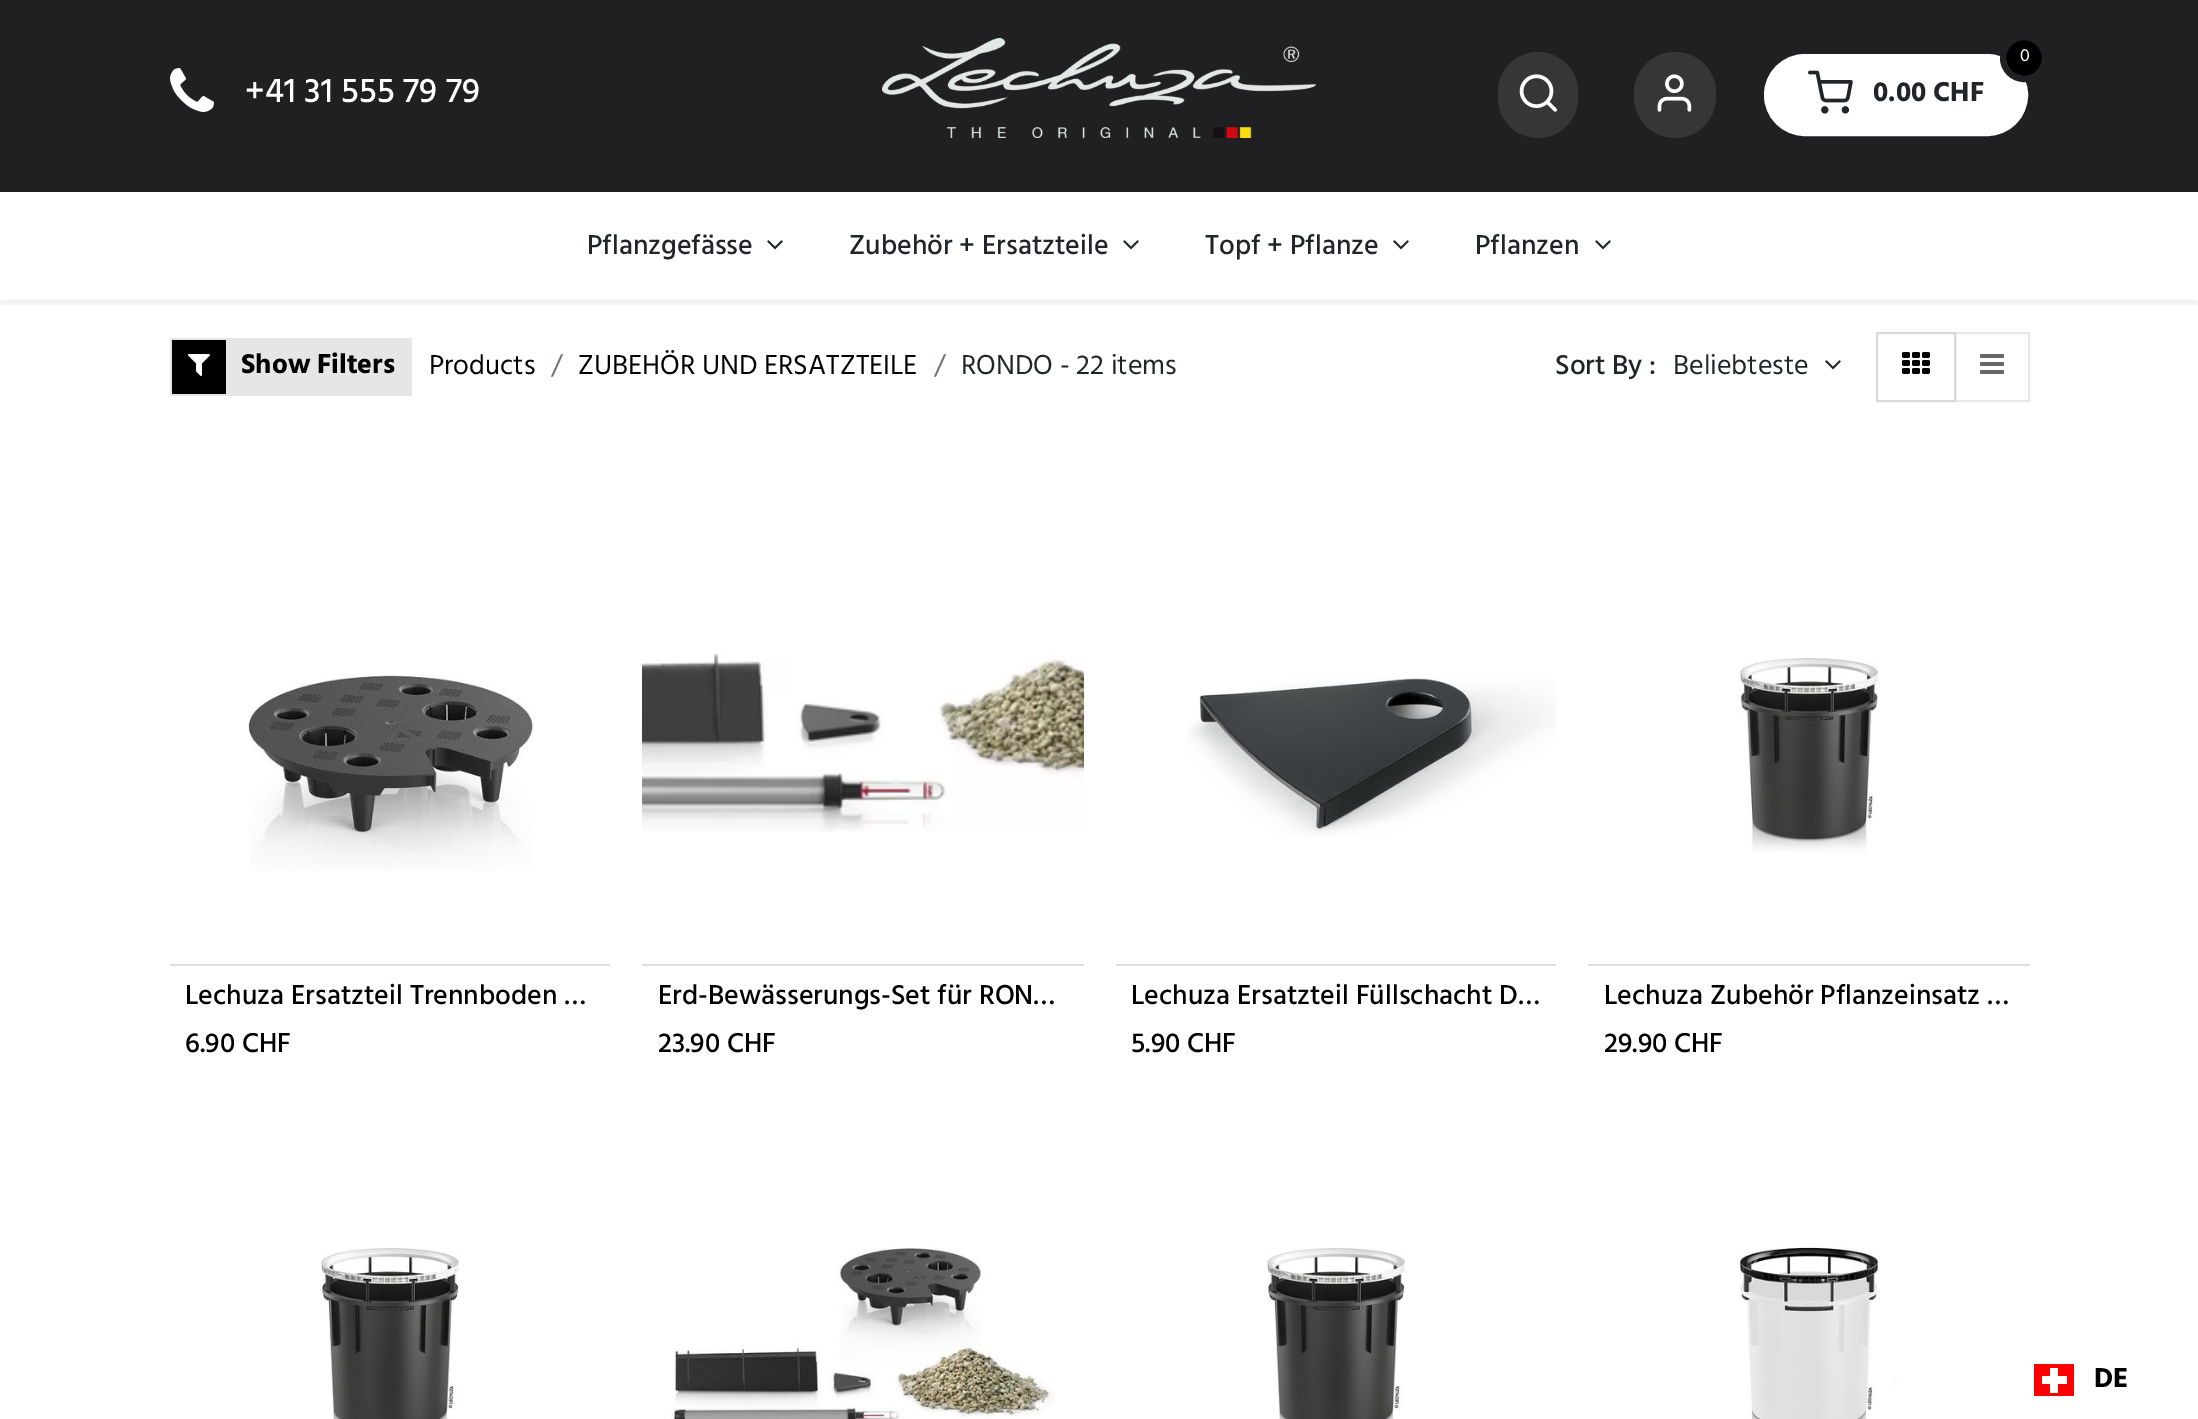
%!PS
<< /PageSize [2198 1419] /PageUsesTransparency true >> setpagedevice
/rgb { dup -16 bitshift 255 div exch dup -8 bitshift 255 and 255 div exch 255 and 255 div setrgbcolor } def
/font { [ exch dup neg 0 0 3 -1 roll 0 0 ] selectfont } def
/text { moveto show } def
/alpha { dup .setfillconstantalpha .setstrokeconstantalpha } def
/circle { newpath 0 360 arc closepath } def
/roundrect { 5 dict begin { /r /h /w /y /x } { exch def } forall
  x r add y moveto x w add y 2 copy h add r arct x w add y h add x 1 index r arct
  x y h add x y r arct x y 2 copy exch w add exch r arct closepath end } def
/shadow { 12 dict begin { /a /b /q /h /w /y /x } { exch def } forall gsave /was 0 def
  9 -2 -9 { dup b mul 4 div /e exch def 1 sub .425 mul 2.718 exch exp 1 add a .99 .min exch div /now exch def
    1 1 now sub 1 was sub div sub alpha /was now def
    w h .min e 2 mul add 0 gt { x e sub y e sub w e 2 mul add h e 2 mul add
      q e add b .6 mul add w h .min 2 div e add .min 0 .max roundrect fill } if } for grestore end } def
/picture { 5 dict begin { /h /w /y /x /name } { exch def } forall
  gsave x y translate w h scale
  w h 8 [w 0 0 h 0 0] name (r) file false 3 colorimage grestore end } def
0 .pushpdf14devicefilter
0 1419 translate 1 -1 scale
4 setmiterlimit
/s1 { /Hind-Medium 35 font 16#FFFFFF rgb } def
/s2 { /Hind-Regular 18 font 16#FFFFFF rgb } def
/s3 { /Hind-Bold 28 font 16#212529 rgb } def
/s4 { /Hind-Medium 28 font 16#212529 rgb } def
/s5 { /Hind-Bold 28 font 16#000000 rgb } def
/s6 { /Hind-Regular 28 font 16#000000 rgb } def
/s7 { /Hind-Regular 28 font 16#6C757D rgb } def
/s8 { /Hind-Regular 28 font 16#212529 rgb } def
/s9 { /Hind-Medium 28 font 16#000000 rgb } def
16#FFFFFF rgb
0 0 2198 1419 rectfill
16#202022 rgb
0 0 2198 192 rectfill
(pic1.raw) 170 68 44 44 picture
s1
(+41 31 555 79 79) 245 102 text
(pic2.raw) 882 38 434 100 picture
16#363638 rgb
1498 52 80 86 40 roundrect fill
(pic3.raw) 1519 74 39 38 picture
1634 52 82 86 41 roundrect fill
(pic4.raw) 1657 74 35 38 picture
16#FFFFFF rgb
1765 55 262 80 40 roundrect gsave fill grestore
2 setlinewidth
stroke
16#000000 rgb
2024 58 18 circle fill
s2
(0) 2020 61 text
16#202022 rgb
6 setlinewidth
2024 58 21 circle stroke
(pic5.raw) 1808 70 45 44 picture
s3
(0.00 CHF) 1873 101 text
gsave
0 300 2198 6 rectclip
16#000000 rgb
0 196 2198 108 0 4 0.07 shadow
grestore
s4
(Pflanzgefässe) 587 254 text
(pic6.raw) 767 240 16 10 picture
(Zubehör + Ersatzteile) 849 254 text
(pic6.raw) 1123 240 16 10 picture
(Topf + Pflanze) 1205 254 text
(pic6.raw) 1393 240 16 10 picture
(Pflanzen) 1475 254 text
(pic6.raw) 1595 240 16 10 picture
16#E6E6E6 rgb
170 338 242 58 rectfill
16#000000 rgb
172 340 54 54 rectfill
(pic7.raw) 188 354 22 22 picture
s5
(Show Filters) 241 373 text
s6
(Products) 429 374 text
s7
(/) 551 374 text
s6
(ZUBEHÖR UND ERSATZTEILE) 578 374 text
s7
(/) 934 374 text
s8
(RONDO - 22 items) 961 374 text
s4
(Sort By :) 1555 374 text
s8
(Beliebteste) 1673 374 text
(pic6.raw) 1825 360 16 10 picture
16#E8E8E8 rgb
2 setlinewidth
1955 333 74 68 rectstroke
16#D9D9D9 rgb
1877 333 78 68 rectstroke
(pic8.raw) 1902 352 28 22 picture
(pic9.raw) 1980 354 24 20 picture
(pic10.raw) 248 675 287 196 picture
16#DEDEDF rgb
170 964 440 2 rectfill
s9
(Lechuza Ersatzteil Trennboden …) 185 1004 text
(6.90 CHF) 185 1052 text
(pic11.raw) 642 653 442 179 picture
16#DEDEDF rgb
642 964 442 2 rectfill
s9
(Erd-Bewässerungs-Set für RON…) 658 1004 text
(23.90 CHF) 658 1052 text
(pic12.raw) 1187 677 369 159 picture
16#DEDEDF rgb
1116 964 440 2 rectfill
s9
(Lechuza Ersatzteil Füllschacht D…) 1131 1004 text
(5.90 CHF) 1131 1052 text
(pic13.raw) 1740 658 138 195 picture
16#DEDEDF rgb
1588 964 442 2 rectfill
s9
(Lechuza Zubehör Pflanzeinsatz …) 1604 1004 text
(29.90 CHF) 1604 1052 text
(pic14.raw) 321 1248 138 171 picture
(pic15.raw) 671 1247 385 172 picture
(pic14.raw) 1267 1248 138 171 picture
(pic16.raw) 1740 1247 157 172 picture
16#FF0000 rgb
2034 1364 40 32 rectfill
16#FFFFFF rgb
2042 1376 25 8 rectfill
2050 1368 8 25 rectfill
s5
(DE) 2094 1387 text
.poppdf14devicefilter showpage
